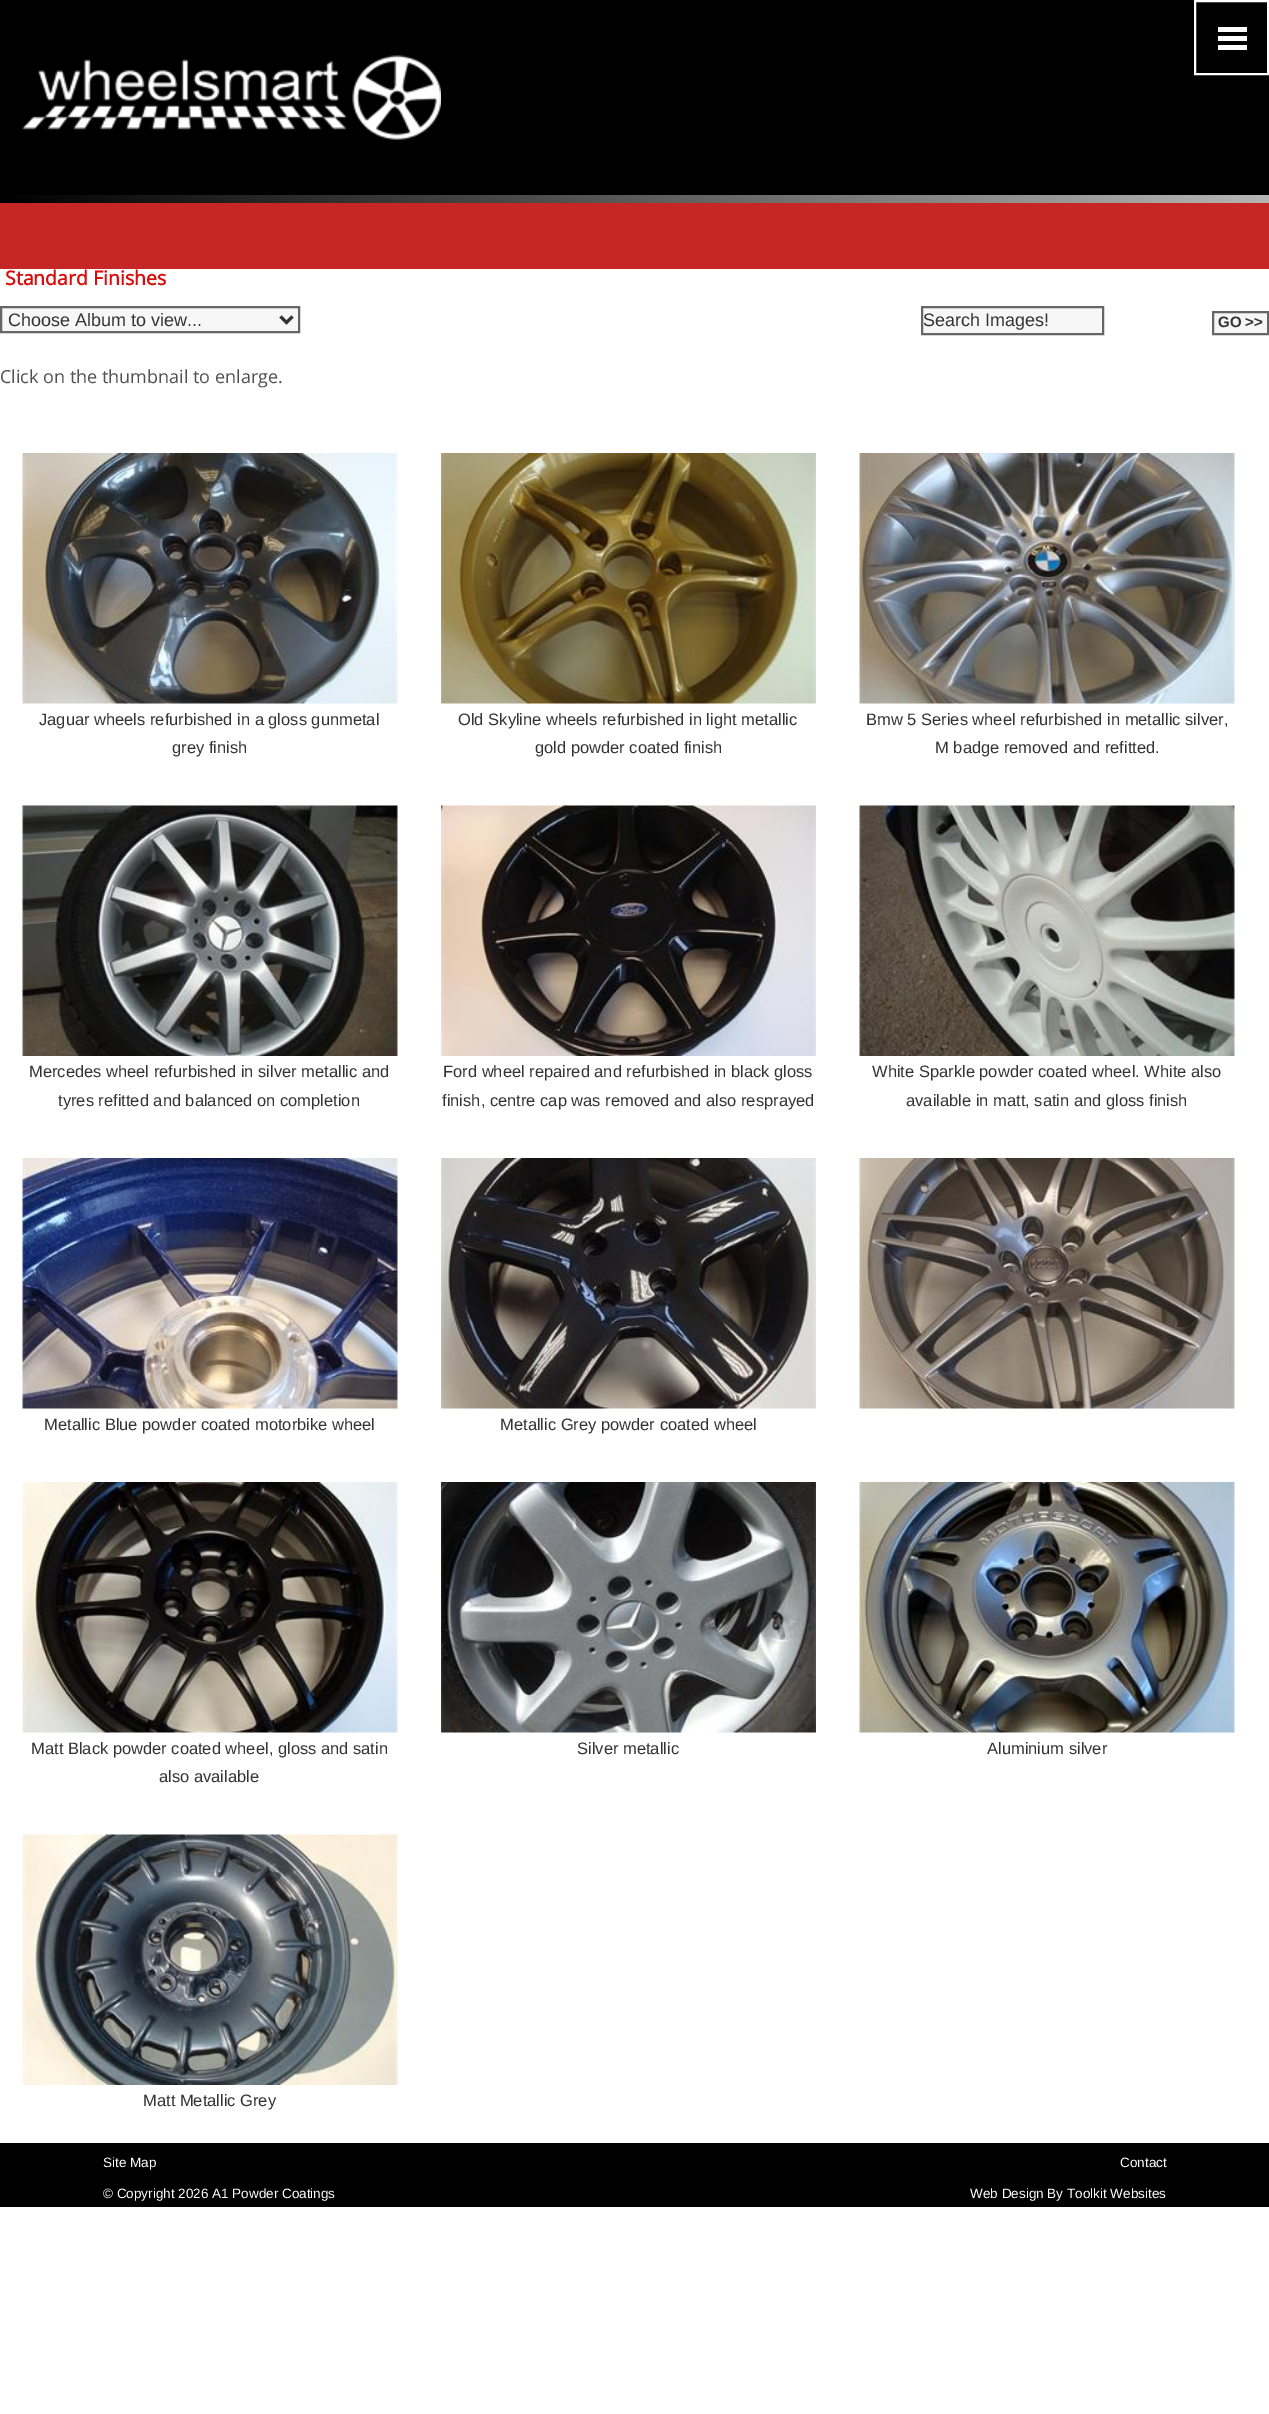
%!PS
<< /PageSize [1269 2414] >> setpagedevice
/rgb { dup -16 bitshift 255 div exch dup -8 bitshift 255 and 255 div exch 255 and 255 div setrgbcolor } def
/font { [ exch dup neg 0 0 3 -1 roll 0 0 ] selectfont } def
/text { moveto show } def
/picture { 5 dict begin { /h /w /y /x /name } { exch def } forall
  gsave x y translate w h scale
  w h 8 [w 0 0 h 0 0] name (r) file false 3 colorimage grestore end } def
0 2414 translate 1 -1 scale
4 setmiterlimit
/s1 { /OpenSans-Bold 19.5 font 16#D80E0E rgb } def
/s2 { /LiberationSans-Regular 18 font 16#333333 rgb } def
/s3 { /LiberationSans-Bold 15 font 16#333333 rgb } def
/s4 { /OpenSans-Regular 18 font 16#4F4F4F rgb } def
/s5 { /LiberationSans-Regular 16.5 font 16#333333 rgb } def
/s6 { /LiberationSans-Regular 13.5 font 16#FFFFFF rgb } def
16#FFFFFF rgb
0 0 1269 2414 rectfill
gsave 0 195 moveto 1269 195 lineto 1269 203 lineto 0 203 lineto closepath clip newpath
<< /ShadingType 2 /ColorSpace /DeviceRGB /Coords [267 469 1002 -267] /Extend [true true] /Function << /FunctionType 2 /Domain [0 1] /C0 [0 0 0] /C1 [0.824 0.824 0.824] /N 1 >> >> shfill grestore
16#000000 rgb
0 0 1269 195 rectfill
(pic1.raw) 22 55 419 85 picture
16#FFFFFF rgb
2 setlinewidth
1195 1 73 73 rectstroke
1218 36 29 5 rectfill
1218 45 29 5 rectfill
1218 27 29 5 rectfill
16#C52626 rgb
0 203 1269 66 rectfill
s1
(Standard Finishes) 5 285 text
16#F7F7F7 rgb
1 307 moveto 299 307 lineto 299 332 lineto 1 332 lineto closepath gsave fill grestore
16#666666 rgb
stroke
16#333333 rgb
3 setlinewidth
280.5 316.5 moveto 286.5 322.5 lineto 292.5 316.5 lineto stroke
s2
(Choose Album to view...) 8 326 text
16#F7F7F7 rgb
922 307 moveto 1103 307 lineto 1103 334 lineto 922 334 lineto closepath gsave fill grestore
16#666666 rgb
2 setlinewidth
stroke
s2
(Search Images!) 923 326 text
16#F6F6F6 rgb
1213 312 moveto 1268 312 lineto 1268 334 lineto 1213 334 lineto closepath gsave fill grestore
16#666666 rgb
stroke
s3
(GO >>) 1218 327 text
s4
(Click on the thumbnail to enlarge.) 0 383 text
(pic2.raw) 22 453 376 251 picture
s5
(Jaguar wheels refurbished in a gloss gunmetal) 39 725 text
(grey finish) 172 753 text
(pic3.raw) 441 453 375 251 picture
(Old Skyline wheels refurbished in light metallic) 458 725 text
(gold powder coated finish) 535 753 text
(pic4.raw) 859 453 376 251 picture
(Bmw 5 Series wheel refurbished in metallic silver,) 866 725 text
(M badge removed and refitted.) 935 753 text
(pic5.raw) 22 805 376 251 picture
(Mercedes wheel refurbished in silver metallic and) 29 1077 text
(tyres refitted and balanced on completion) 58 1106 text
(pic6.raw) 441 805 375 251 picture
(Ford wheel repaired and refurbished in black gloss) 443 1077 text
(finish, centre cap was removed and also resprayed) 442 1106 text
(pic7.raw) 859 805 376 251 picture
(White Sparkle powder coated wheel. White also) 872 1077 text
(available in matt, satin and gloss finish) 906 1106 text
(pic8.raw) 859 1158 376 251 picture
(pic9.raw) 22 1158 376 251 picture
(Metallic Blue powder coated motorbike wheel) 44 1430 text
(pic10.raw) 441 1158 375 251 picture
(Metallic Grey powder coated wheel) 500 1430 text
(pic11.raw) 22 1482 376 251 picture
(Matt Black powder coated wheel, gloss and satin) 31 1754 text
(also available) 159 1782 text
(pic12.raw) 441 1482 375 251 picture
(Silver metallic) 577 1754 text
(pic13.raw) 859 1482 376 251 picture
(Aluminium silver) 987 1754 text
(pic14.raw) 22 1834 376 251 picture
(Matt Metallic Grey) 143 2106 text
16#000000 rgb
0 2143 1269 64 rectfill
s6
(Site Map) 103 2167 text
(Contact) 1120 2167 text
(© Copyright 2026 A1 Powder Coatings) 103 2198 text
(Web Design By Toolkit Websites) 970 2198 text
showpage
